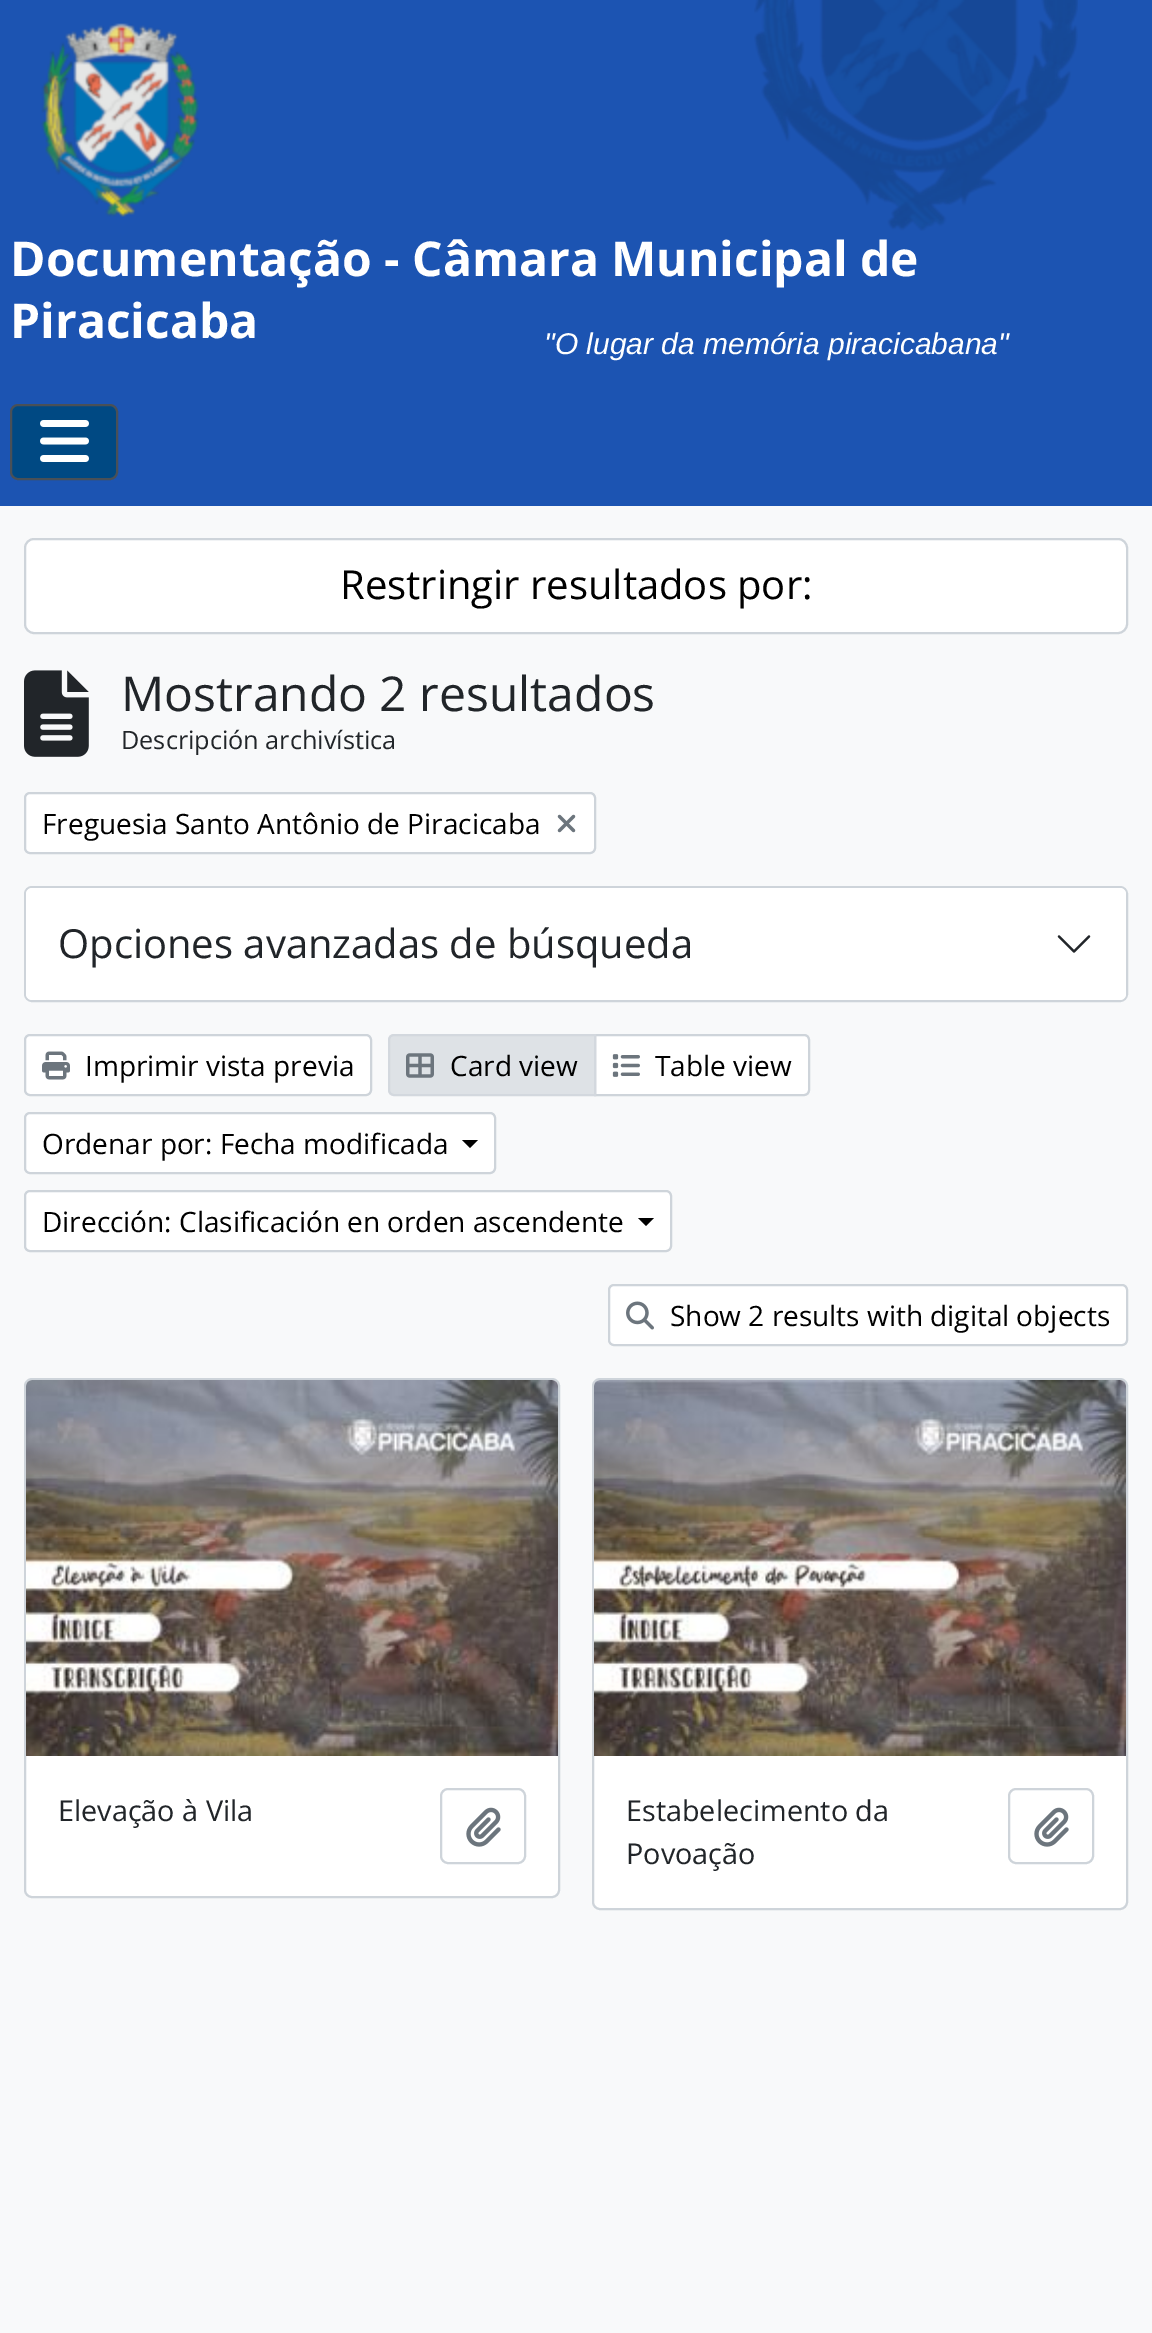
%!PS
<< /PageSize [1152 2333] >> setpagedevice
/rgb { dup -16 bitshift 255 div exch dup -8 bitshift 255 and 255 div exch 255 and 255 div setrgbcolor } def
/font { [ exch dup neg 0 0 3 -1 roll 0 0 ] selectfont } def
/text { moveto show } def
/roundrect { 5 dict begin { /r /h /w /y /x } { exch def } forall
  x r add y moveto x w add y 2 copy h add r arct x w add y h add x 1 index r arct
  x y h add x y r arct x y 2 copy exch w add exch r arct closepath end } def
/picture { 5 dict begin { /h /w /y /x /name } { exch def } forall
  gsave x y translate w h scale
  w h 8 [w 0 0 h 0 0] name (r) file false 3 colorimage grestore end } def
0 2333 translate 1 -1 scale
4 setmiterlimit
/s1 { /OpenSans-Bold 48 font 16#FFFFFF rgb } def
/s2 { /LiberationSans-Italic 30 font 16#FFFFFF rgb } def
/s3 { /OpenSans-Regular 40 font 16#000000 rgb } def
/s4 { /OpenSans-Regular 48 font 16#212529 rgb } def
/s5 { /OpenSans-Regular 25.25 font 16#212529 rgb } def
/s6 { /OpenSans-Regular 28 font 16#000000 rgb } def
/s7 { /OpenSans-Regular 40 font 16#212529 rgb } def
/s8 { /OpenSans-Regular 28.75 font 16#212529 rgb } def
16#F8F9FA rgb
0 0 1152 2333 rectfill
16#1C54B2 rgb
0 0 1152 506 rectfill
(pic1.raw) 754 0 324 231 picture
(pic2.raw) 41 23 158 194 picture
s1
(Documentação - Câmara Municipal de) 10 276 text
(Piracicaba) 10 338 text
s2
("O lugar da memória piracicabana") 544 354 text
16#004983 rgb
11 405 106 74 7 roundrect gsave fill grestore
16#495057 rgb
2 setlinewidth
stroke
(pic3.raw) 40 420 49 42 picture
16#FFFFFF rgb
25 539 1102 94 9 roundrect gsave fill grestore
16#CED4DA rgb
stroke
s3
(Restringir resultados por:) 340 599 text
(pic4.raw) 24 670 65 87 picture
s4
(Mostrando 2 resultados) 121 711 text
s5
(Descripción archivística) 121 749 text
16#FFFFFF rgb
25 793 570 60 5 roundrect gsave fill grestore
16#CED4DA rgb
stroke
s6
(Freguesia Santo Antônio de Piracicaba) 42 834 text
(pic5.raw) 557 814 19 19 picture
16#CED4DA rgb
25 887 1102 114 7 roundrect stroke
16#FFFFFF rgb
26 888 1100 112 6 roundrect fill
s7
(Opciones avanzadas de búsqueda) 58 958 text
(pic6.raw) 1057 935 34 18 picture
16#FFFFFF rgb
25 1035 346 60 5 roundrect gsave fill grestore
16#CED4DA rgb
stroke
(pic7.raw) 42 1051 28 29 picture
s6
(Imprimir vista previa) 85 1076 text
16#FFFFFF rgb
595 1035 moveto 804 1035 lineto 807 1035 809 1037 809 1040 curveto 809 1090 lineto 809 1093 807 1095 804 1095 curveto 595 1095 lineto closepath gsave fill grestore
16#CED4DA rgb
stroke
16#DEE2E6 rgb
394 1035 moveto 595 1035 lineto 595 1095 lineto 394 1095 lineto 391 1095 389 1093 389 1090 curveto 389 1040 lineto 389 1037 391 1035 394 1035 curveto closepath gsave fill grestore
16#D3D8DE rgb
stroke
(pic8.raw) 406 1053 28 25 picture
s6
(Card view) 450 1076 text
(pic9.raw) 612 1054 28 23 picture
(Table view) 655 1076 text
16#FFFFFF rgb
25 1113 470 60 5 roundrect gsave fill grestore
16#CED4DA rgb
stroke
s6
(Ordenar por: Fecha modificada) 42 1154 text
462 1140 moveto 478 1140 lineto 470 1148 lineto closepath fill
16#FFFFFF rgb
25 1191 646 60 5 roundrect gsave fill grestore
16#CED4DA rgb
stroke
s6
(Dirección: Clasificación en orden ascendente) 42 1232 text
638 1218 moveto 654 1218 lineto 646 1226 lineto closepath fill
16#FFFFFF rgb
609 1285 518 60 5 roundrect gsave fill grestore
16#CED4DA rgb
stroke
(pic10.raw) 626 1301 28 29 picture
s6
(Show 2 results with digital objects) 670 1326 text
16#FFFFFF rgb
25 1379 534 518 7 roundrect gsave fill grestore
16#CED4DA rgb
stroke
(pic11.raw) 26 1380 532 376 picture
s8
(Elevação à Vila) 58 1821 text
16#CED4DA rgb
441 1789 84 74 7 roundrect stroke
(pic12.raw) 466 1807 35 40 picture
16#FFFFFF rgb
593 1379 534 530 7 roundrect gsave fill grestore
16#CED4DA rgb
stroke
(pic13.raw) 594 1380 532 376 picture
s8
(Estabelecimento da) 626 1821 text
(Povoação) 626 1864 text
16#CED4DA rgb
1009 1789 84 74 7 roundrect stroke
(pic12.raw) 1034 1807 35 40 picture
showpage
